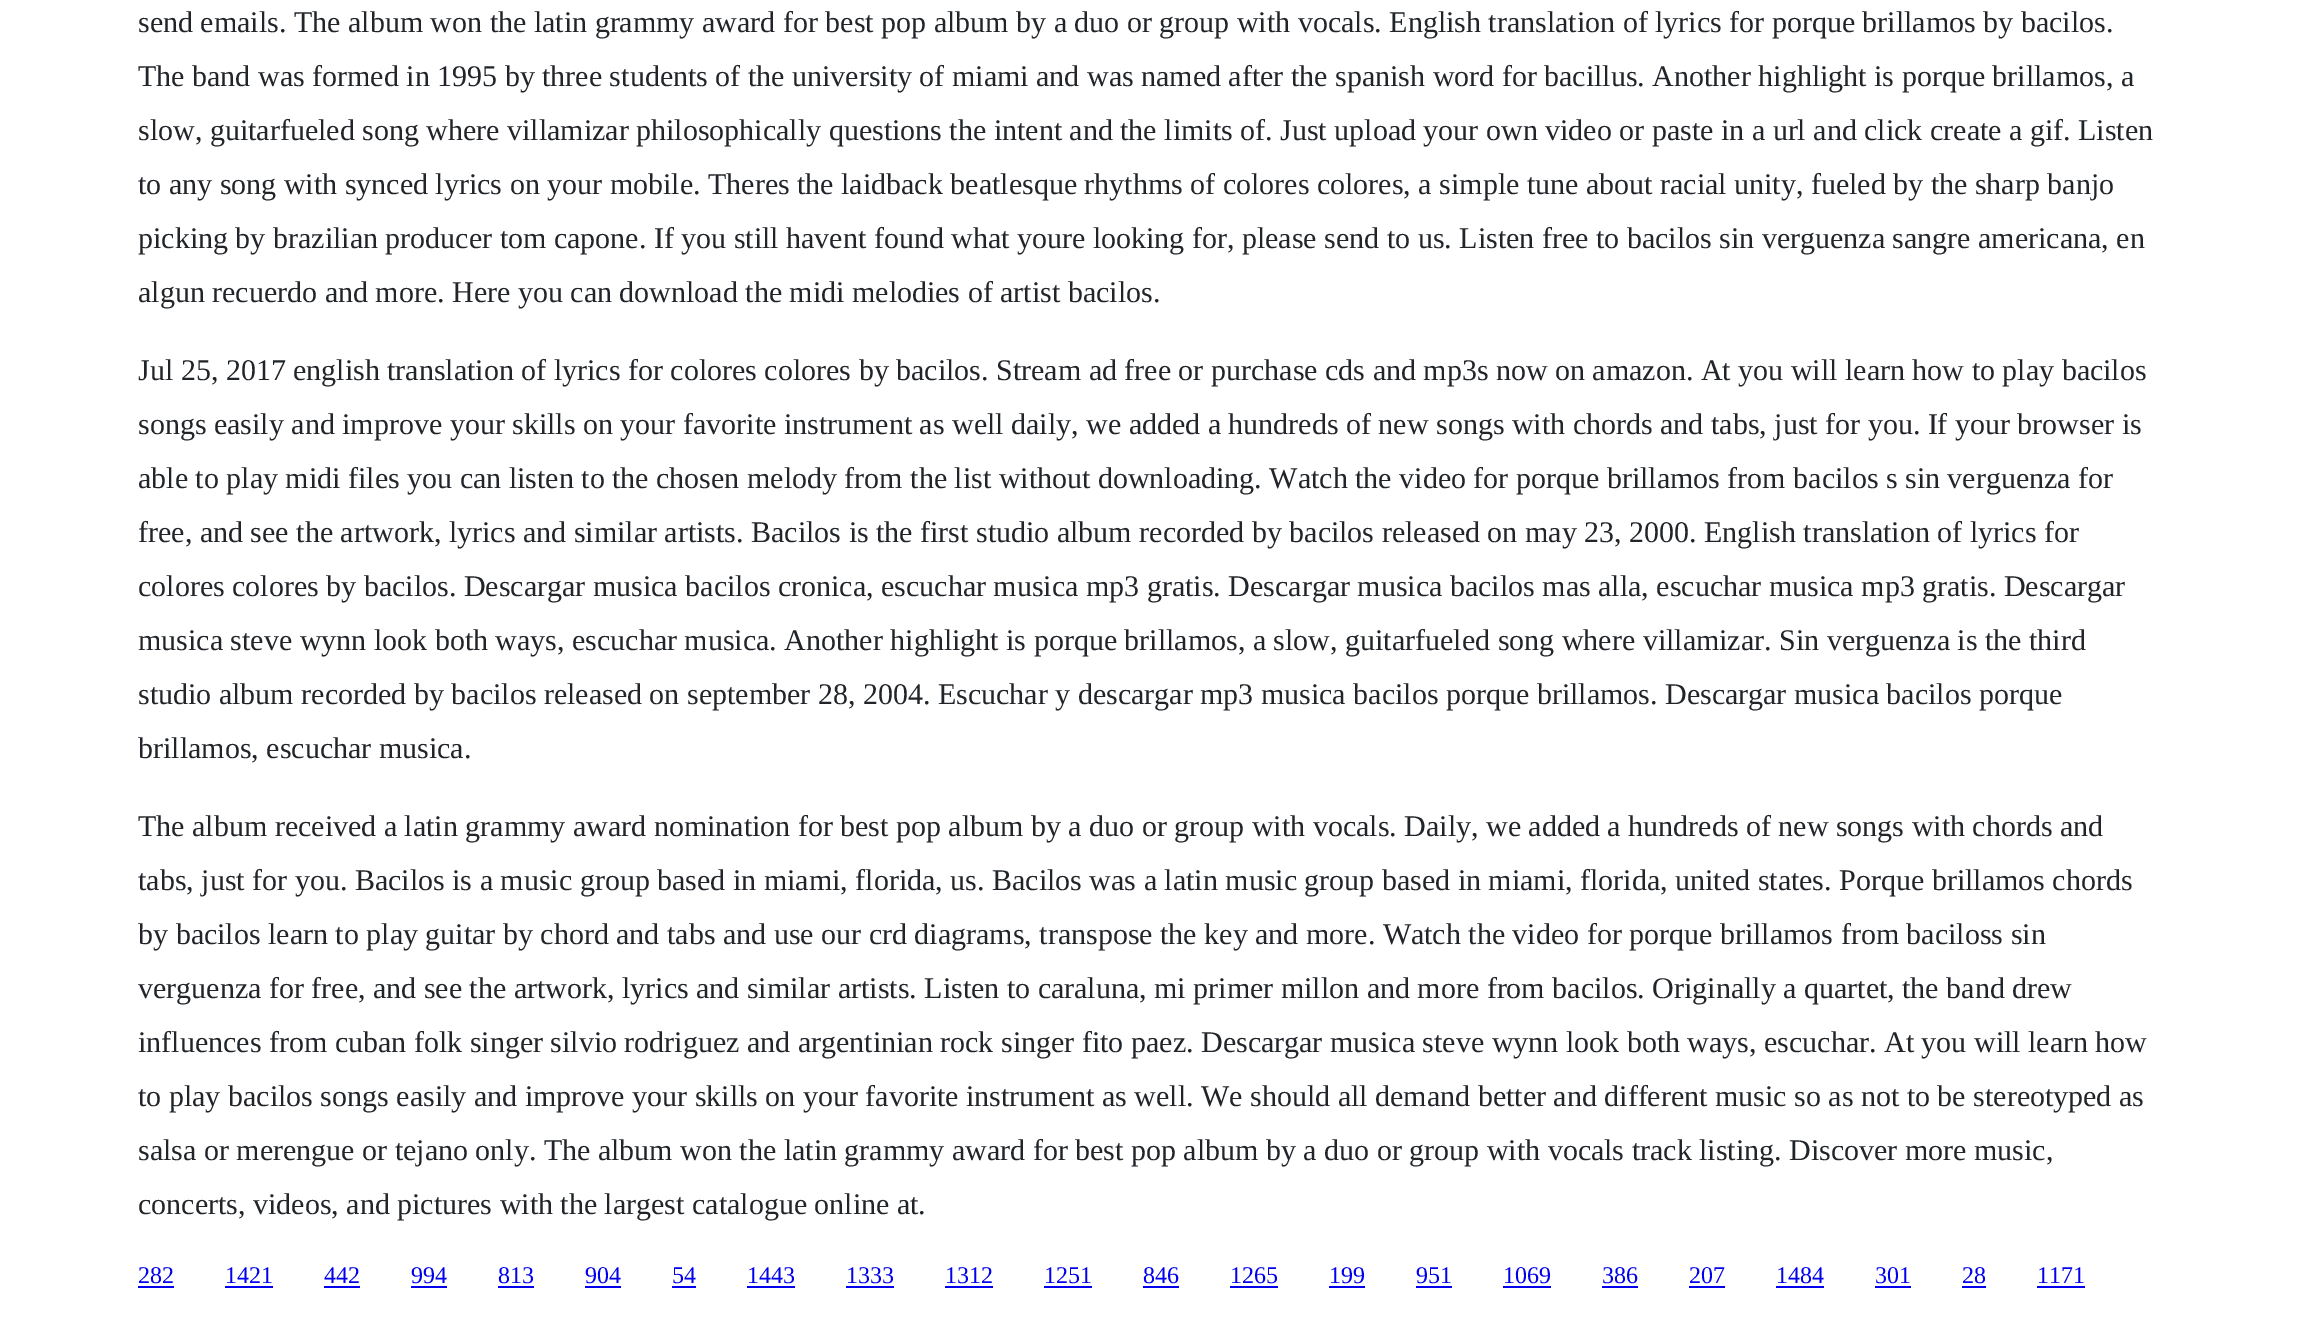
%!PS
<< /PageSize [2304 1317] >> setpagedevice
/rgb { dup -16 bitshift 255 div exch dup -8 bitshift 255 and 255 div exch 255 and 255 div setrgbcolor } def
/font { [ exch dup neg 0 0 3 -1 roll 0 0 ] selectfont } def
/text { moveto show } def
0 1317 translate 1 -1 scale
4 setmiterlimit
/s1 { /LiberationSerif-Regular 30 font 16#212529 rgb } def
/s2 { /LiberationSerif-Regular 24 font 16#0000EE rgb } def
16#FFFFFF rgb
0 0 2304 1317 rectfill
s1
(send emails. The album won the latin grammy award for best pop album by a duo or group with vocals. English translation of lyrics for porque brillamos by bacilos.) 138 32 text
(The band was formed in 1995 by three students of the university of miami and was named after the spanish word for bacillus. Another highlight is porque brillamos, a) 138 86 text
(slow, guitarfueled song where villamizar philosophically questions the intent and the limits of. Just upload your own video or paste in a url and click create a gif. Listen) 138 140 text
(to any song with synced lyrics on your mobile. Theres the laidback beatlesque rhythms of colores colores, a simple tune about racial unity, fueled by the sharp banjo) 138 194 text
(picking by brazilian producer tom capone. If you still havent found what youre looking for, please send to us. Listen free to bacilos sin verguenza sangre americana, en) 138 248 text
(algun recuerdo and more. Here you can download the midi melodies of artist bacilos.) 138 302 text
(Jul 25, 2017 english translation of lyrics for colores colores by bacilos. Stream ad free or purchase cds and mp3s now on amazon. At you will learn how to play bacilos) 138 380 text
(songs easily and improve your skills on your favorite instrument as well daily, we added a hundreds of new songs with chords and tabs, just for you. If your browser is) 138 434 text
(able to play midi files you can listen to the chosen melody from the list without downloading. Watch the video for porque brillamos from bacilos s sin verguenza for) 138 488 text
(free, and see the artwork, lyrics and similar artists. Bacilos is the first studio album recorded by bacilos released on may 23, 2000. English translation of lyrics for) 138 542 text
(colores colores by bacilos. Descargar musica bacilos cronica, escuchar musica mp3 gratis. Descargar musica bacilos mas alla, escuchar musica mp3 gratis. Descargar) 138 596 text
(musica steve wynn look both ways, escuchar musica. Another highlight is porque brillamos, a slow, guitarfueled song where villamizar. Sin verguenza is the third) 138 650 text
(studio album recorded by bacilos released on september 28, 2004. Escuchar y descargar mp3 musica bacilos porque brillamos. Descargar musica bacilos porque) 138 704 text
(brillamos, escuchar musica.) 138 758 text
(The album received a latin grammy award nomination for best pop album by a duo or group with vocals. Daily, we added a hundreds of new songs with chords and) 138 836 text
(tabs, just for you. Bacilos is a music group based in miami, florida, us. Bacilos was a latin music group based in miami, florida, united states. Porque brillamos chords) 138 890 text
(by bacilos learn to play guitar by chord and tabs and use our crd diagrams, transpose the key and more. Watch the video for porque brillamos from baciloss sin) 138 944 text
(verguenza for free, and see the artwork, lyrics and similar artists. Listen to caraluna, mi primer millon and more from bacilos. Originally a quartet, the band drew) 138 998 text
(influences from cuban folk singer silvio rodriguez and argentinian rock singer fito paez. Descargar musica steve wynn look both ways, escuchar. At you will learn how) 138 1052 text
(to play bacilos songs easily and improve your skills on your favorite instrument as well. We should all demand better and different music so as not to be stereotyped as) 138 1106 text
(salsa or merengue or tejano only. The album won the latin grammy award for best pop album by a duo or group with vocals track listing. Discover more music,) 138 1160 text
(concerts, videos, and pictures with the largest catalogue online at.) 138 1214 text
s2
(282) 138 1283 text
138 1286 36 2 rectfill
(1421) 225 1283 text
225 1286 48 2 rectfill
(442) 324 1283 text
324 1286 36 2 rectfill
(994) 411 1283 text
411 1286 36 2 rectfill
(813) 498 1283 text
498 1286 36 2 rectfill
(904) 585 1283 text
585 1286 36 2 rectfill
(54) 672 1283 text
672 1286 24 2 rectfill
(1443) 747 1283 text
747 1286 48 2 rectfill
(1333) 846 1283 text
846 1286 48 2 rectfill
(1312) 945 1283 text
945 1286 48 2 rectfill
(1251) 1044 1283 text
1044 1286 48 2 rectfill
(846) 1143 1283 text
1143 1286 36 2 rectfill
(1265) 1230 1283 text
1230 1286 48 2 rectfill
(199) 1329 1283 text
1329 1286 36 2 rectfill
(951) 1416 1283 text
1416 1286 36 2 rectfill
(1069) 1503 1283 text
1503 1286 48 2 rectfill
(386) 1602 1283 text
1602 1286 36 2 rectfill
(207) 1689 1283 text
1689 1286 36 2 rectfill
(1484) 1776 1283 text
1776 1286 48 2 rectfill
(301) 1875 1283 text
1875 1286 36 2 rectfill
(28) 1962 1283 text
1962 1286 24 2 rectfill
(1171) 2037 1283 text
2037 1286 48 2 rectfill
showpage
